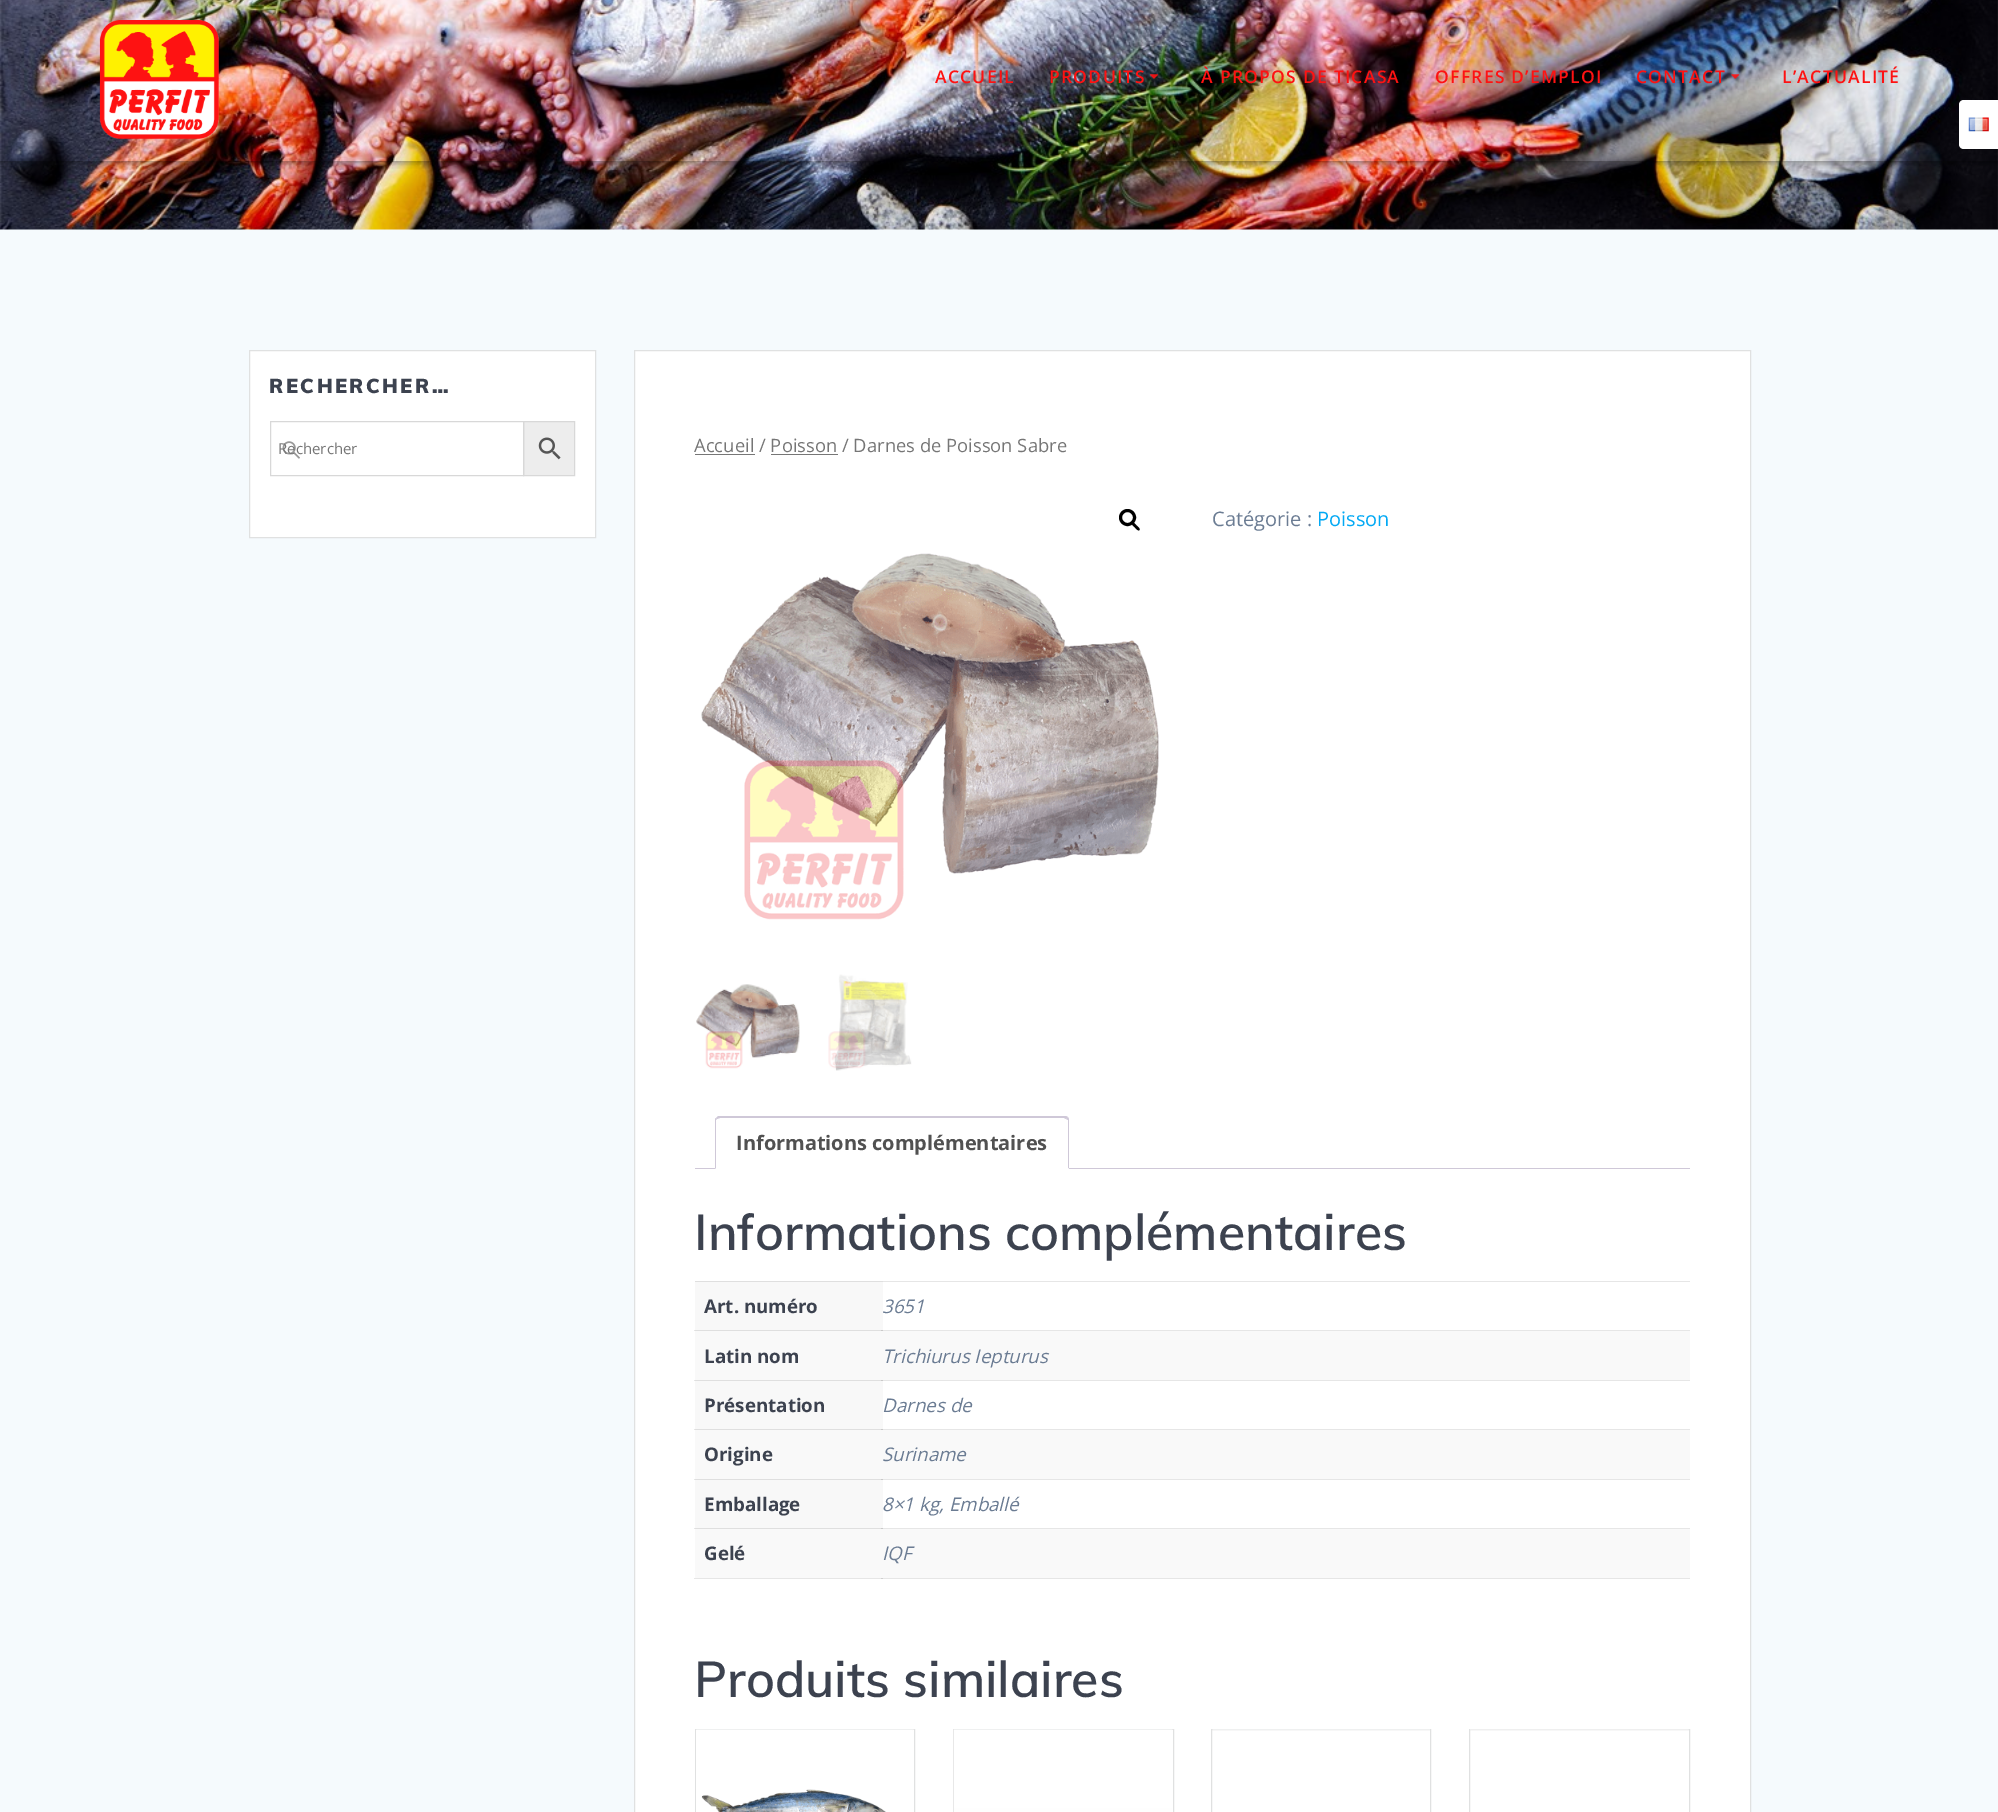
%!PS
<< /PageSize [1998 1812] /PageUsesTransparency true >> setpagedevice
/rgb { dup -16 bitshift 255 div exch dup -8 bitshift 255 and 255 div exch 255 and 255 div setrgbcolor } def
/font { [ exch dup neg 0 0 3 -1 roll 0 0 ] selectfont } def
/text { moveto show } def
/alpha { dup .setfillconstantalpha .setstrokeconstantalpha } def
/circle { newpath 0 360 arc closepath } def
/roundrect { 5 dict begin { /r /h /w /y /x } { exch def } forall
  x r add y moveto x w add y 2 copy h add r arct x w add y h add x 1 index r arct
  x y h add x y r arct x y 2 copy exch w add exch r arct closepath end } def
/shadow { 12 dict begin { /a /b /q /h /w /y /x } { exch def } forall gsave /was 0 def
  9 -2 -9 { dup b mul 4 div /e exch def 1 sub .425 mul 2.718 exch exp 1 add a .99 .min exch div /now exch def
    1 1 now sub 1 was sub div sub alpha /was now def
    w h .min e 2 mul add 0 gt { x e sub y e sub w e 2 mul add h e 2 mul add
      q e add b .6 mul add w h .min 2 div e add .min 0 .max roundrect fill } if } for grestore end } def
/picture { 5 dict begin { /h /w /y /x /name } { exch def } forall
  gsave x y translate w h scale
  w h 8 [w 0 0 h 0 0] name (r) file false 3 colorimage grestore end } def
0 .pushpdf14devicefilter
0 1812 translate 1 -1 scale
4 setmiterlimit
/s1 { /OpenSans-Regular 15 font 16#767676 rgb } def
/s2 { /OpenSans-Regular 18.4 font 16#767676 rgb } def
/s3 { /OpenSans-Regular 20 font 16#6B7C93 rgb } def
/s4 { /OpenSans-Regular 20 font 16#03A9F4 rgb } def
/s5 { /OpenSans-Bold 20 font 16#515151 rgb } def
/s6 { /Muli-SemiBold 50 font 16#3C424F rgb } def
/s7 { /OpenSans-Bold 18.75 font 16#3C424F rgb } def
/s8 { /OpenSans-Italic 18.75 font 16#6B7C93 rgb } def
16#F5FAFD rgb
0 0 1998 1812 rectfill
(pic5.raw) 0 0 1998 230 picture
gsave
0 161 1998 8 rectclip
16#000000 rgb
-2 -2 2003 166 0 3 0.33 shadow
grestore
(pic1.raw) 99 20 120 119 picture
/OpenSans-SemiBold 17.5 font
16#FE1212 rgb
935 83 moveto 1.25 0 (ACCUEIL) ashow
1049 83 moveto 1.25 0 (PRODUITS) ashow
(pic2.raw) 1150 74 8 5 picture
1201 83 moveto 1.25 0 (À PROPOS DE TICASA) ashow
1435 83 moveto 1.25 0 (OFFRES D’EMPLOI) ashow
1636 83 moveto 1.25 0 (CONTACT) ashow
(pic3.raw) 1731 74 9 5 picture
1782 83 moveto 1.25 0 (L’ACTUALITÉ) ashow
16#FFFFFF rgb
1964 100 moveto 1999 100 lineto 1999 149 lineto 1964 149 lineto 1961 149 1959 147 1959 144 curveto 1959 105 lineto 1959 102 1961 100 1964 100 curveto closepath fill
(pic4.raw) 1968 117 21 15 picture
249.5 350.5 moveto 595.5 350.5 lineto 595.5 537.5 lineto 249.5 537.5 lineto closepath gsave fill grestore
16#E0E1E1 rgb
stroke
/Muli-Black 20 font
16#3C424F rgb
269 393 moveto 2.5 0 (RECHERCHER…) ashow
(pic6.raw) 282 441 18 18 picture
16#EDEDED rgb
523.5 421.5 moveto 574.5 421.5 lineto 574.5 475.5 lineto 523.5 475.5 lineto closepath gsave fill grestore
16#D8D8D8 rgb
stroke
270.5 421.5 253 54 rectstroke
s1
(Rechercher) 278 454 text
(pic7.raw) 538 437 23 23 picture
16#FFFFFF rgb
635 351 1115 1461 rectfill
16#E6E6E6 rgb
694 1330 1 1 rectfill
881 1330 809 1 rectfill
694 1380 1 1 rectfill
881 1380 809 1 rectfill
694 1429 1 1 rectfill
881 1429 809 1 rectfill
694 1479 1 1 rectfill
881 1479 809 1 rectfill
694 1528 1 1 rectfill
881 1528 809 1 rectfill
694 1578 189 1 rectfill
883 1281 807 1 rectfill
16#E0E1E1 rgb
634.5 350.5 1116 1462 rectstroke
s2
(Accueil / Poisson / Darnes de Poisson Sabre) 694 452 text
695 454 60 1 rectfill
771 454 67 1 rectfill
16#000000 rgb
3 setlinewidth
1127.5 517.5 7 circle stroke
1132 523 moveto 1133.5 521.5 1136 525 1136.5 525.5 curveto 1137.5 526.5 1140.5 528.5 1139.5 530 curveto 1138 531.5 1135.5 528 1135 527.5 curveto 1134 526.5 1131 524.5 1132 523 curveto closepath fill
(pic8.raw) 701 553 458 367 picture
(pic9.raw) 696 984 104 85 picture
(pic10.raw) 828 974 84 97 picture
s3
(Catégorie :) 1212 526 text
s4
(Poisson) 1317 526 text
16#CFC8D8 rgb
695 1168 995 1 rectfill
16#FFFFFF rgb
720 1116 moveto 1064 1116 lineto 1067 1116 1069 1118 1069 1121 curveto 1069 1169 lineto 715 1169 lineto 715 1121 lineto 715 1118 717 1116 720 1116 curveto closepath fill
16#CFC8D8 rgb
720 1118 moveto 717 1119 lineto 716 1118 lineto 718 1116 lineto 1066 1116 lineto 1068 1117 lineto 1066 1119 lineto 1064 1118 lineto closepath fill
1068 1117 moveto 1069 1119 lineto 1069 1169 lineto 1068 1168 lineto 1068 1120 lineto 1066 1119 lineto closepath fill
16#FFFFFF rgb
1069 1169 moveto 1068 1168 lineto 716 1168 lineto 715 1169 lineto closepath fill
16#CFC8D8 rgb
715 1169 moveto 716 1168 lineto 716 1120 lineto 717 1119 lineto 716 1118 lineto 715 1118 715 1120 715 1121 curveto closepath fill
s5
(Informations complémentaires) 736 1150 text
s6
(Informations complémentaires) 694 1250 text
16#F8F8F8 rgb
695 1282 188 48 rectfill
16#DFDFDF rgb
695 1330 188 1 rectfill
16#C9C9C9 rgb
881 1330 2 1 rectfill
16#DFDFDF rgb
695 1281 188 1 rectfill
s7
(Art. numéro) 704 1313 text
s8
(3651) 882 1313 text
16#F9F9F9 rgb
695 1331 995 49 rectfill
s7
(Latin nom) 704 1363 text
s8
(Trichiurus Iepturus) 882 1363 text
16#F8F8F8 rgb
695 1381 188 48 rectfill
16#DFDFDF rgb
695 1380 188 1 rectfill
16#C9C9C9 rgb
881 1380 2 1 rectfill
16#DFDFDF rgb
695 1429 188 1 rectfill
16#C9C9C9 rgb
881 1429 2 1 rectfill
s7
(Présentation) 704 1412 text
s8
(Darnes de) 882 1412 text
16#F9F9F9 rgb
695 1430 995 49 rectfill
s7
(Origine) 704 1461 text
s8
(Suriname) 882 1461 text
16#F8F8F8 rgb
695 1480 188 48 rectfill
16#DFDFDF rgb
695 1479 188 1 rectfill
16#C9C9C9 rgb
881 1479 2 1 rectfill
16#DFDFDF rgb
695 1528 188 1 rectfill
16#C9C9C9 rgb
881 1528 2 1 rectfill
s7
(Emballage) 704 1511 text
s8
(8×1 kg, Emballé) 882 1511 text
16#F9F9F9 rgb
695 1529 995 49 rectfill
s7
(Gelé) 704 1560 text
16#E6E6E6 rgb
881 1578 809 1 rectfill
16#CFCFCF rgb
881 1578 2 1 rectfill
s8
(IQF) 882 1560 text
s6
(Produits similaires) 694 1697 text
16#E0E1E1 rgb
1 setlinewidth
695.5 1729.5 219 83 rectstroke
(pic11.raw) 696 1729 218 83 picture
953.5 1729.5 220 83 rectstroke
(pic12.raw) 953 1729 220 83 picture
1211.5 1729.5 219 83 rectstroke
(pic13.raw) 1212 1729 218 1 picture
1469.5 1729.5 220 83 rectstroke
(pic14.raw) 1470 1729 219 1 picture
.poppdf14devicefilter showpage
